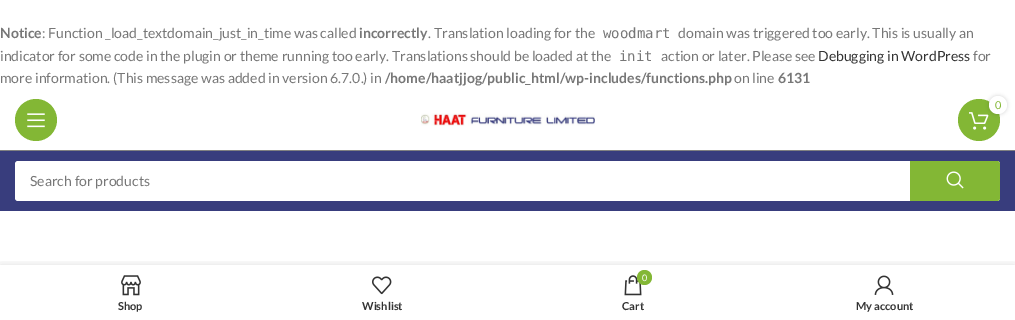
%!PS
<< /PageSize [1015 320] /PageUsesTransparency true >> setpagedevice
/rgb { dup -16 bitshift 255 div exch dup -8 bitshift 255 and 255 div exch 255 and 255 div setrgbcolor } def
/font { [ exch dup neg 0 0 3 -1 roll 0 0 ] selectfont } def
/text { moveto show } def
/alpha { dup .setfillconstantalpha .setstrokeconstantalpha } def
/circle { newpath 0 360 arc closepath } def
/roundrect { 5 dict begin { /r /h /w /y /x } { exch def } forall
  x r add y moveto x w add y 2 copy h add r arct x w add y h add x 1 index r arct
  x y h add x y r arct x y 2 copy exch w add exch r arct closepath end } def
/shadow { 12 dict begin { /a /b /q /h /w /y /x } { exch def } forall gsave /was 0 def
  9 -2 -9 { dup b mul 4 div /e exch def 1 sub .425 mul 2.718 exch exp 1 add a .99 .min exch div /now exch def
    1 1 now sub 1 was sub div sub alpha /was now def
    w h .min e 2 mul add 0 gt { x e sub y e sub w e 2 mul add h e 2 mul add
      q e add b .6 mul add w h .min 2 div e add .min 0 .max roundrect fill } if } for grestore end } def
/picture { 5 dict begin { /h /w /y /x /name } { exch def } forall
  gsave x y translate w h scale
  w h 8 [w 0 0 h 0 0] name (r) file false 3 colorimage grestore end } def
0 .pushpdf14devicefilter
0 320 translate 1 -1 scale
4 setmiterlimit
/s1 { /Lato-Bold 14 font 16#777777 rgb } def
/s2 { /Lato-Regular 14 font 16#777777 rgb } def
/s3 { /DejaVuSansMono-Regular 14 font 16#777777 rgb } def
/s4 { /Lato-Regular 14 font 16#333333 rgb } def
/s5 { /Lato-Regular 11 font 16#83B735 rgb } def
/s6 { /Lato-Bold 11 font 16#333333 rgb } def
/s7 { /Lato-Regular 9 font 16#FFFFFF rgb } def
16#FFFFFF rgb
0 0 1015 320 rectfill
s1
(Notice) 0 38 text
s2
(: Function _load_textdomain_just_in_time was called) 42 38 text
s1
(incorrectly) 359 38 text
s2
(. Translation loading for the) 428 38 text
s3
(woodmart) 603 38 text
s2
(domain was triggered too early. This is usually an) 678 38 text
(indicator for some code in the plugin or theme running too early. Translations should be loaded at the) 0 61 text
s3
(init) 619 61 text
s2
(action or later. Please see) 661 61 text
s4
(Debugging in WordPress) 818 61 text
s2
(for) 973 61 text
(more information. \(This message was added in version 6.7.0.\) in) 0 83 text
s1
(/home/haatjjog/public_html/wp-includes/functions.php) 385 83 text
s2
(on line) 734 83 text
s1
(6131) 778 83 text
16#818181 rgb
0 150 1015 1 rectfill
16#83B735 rgb
36 120 21 circle fill
(pic1.raw) 27 113 18 15 picture
979 120 21 circle fill
(pic2.raw) 969 112 20 18 picture
16#000000 rgb
989 96 18 18 9 2 0.17 shadow
16#FFFFFF rgb
998 105 9 circle fill
s5
(0) 995 109 text
(pic3.raw) 421 113 174 13 picture
16#383D7D rgb
0 151 1015 60 rectfill
16#FFFFFF rgb
15 161 985 40 3 roundrect fill
s2
(Search for products) 30 186 text
16#83B735 rgb
910 161 moveto 997 161 lineto 998.5 161 1000 162.5 1000 164 curveto 1000 198 lineto 1000 199.5 998.5 201 997 201 curveto 910 201 lineto closepath fill
(pic4.raw) 946 171 18 18 picture
gsave
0 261 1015 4 rectclip
16#000000 rgb
0 265 1015 55 0 4.5 0.12 shadow
grestore
(pic5.raw) 121 275 20 21 picture
s6
(Shop) 118 310 text
(pic6.raw) 372 276 20 19 picture
(Wishlist) 362 310 text
(pic7.raw) 624 275 18 21 picture
16#83B735 rgb
644.5 277.5 7.5 circle fill
s7
(0) 642 281 text
s6
(Cart) 622 310 text
(pic8.raw) 874 275 20 20 picture
(My account) 856 310 text
.poppdf14devicefilter showpage
